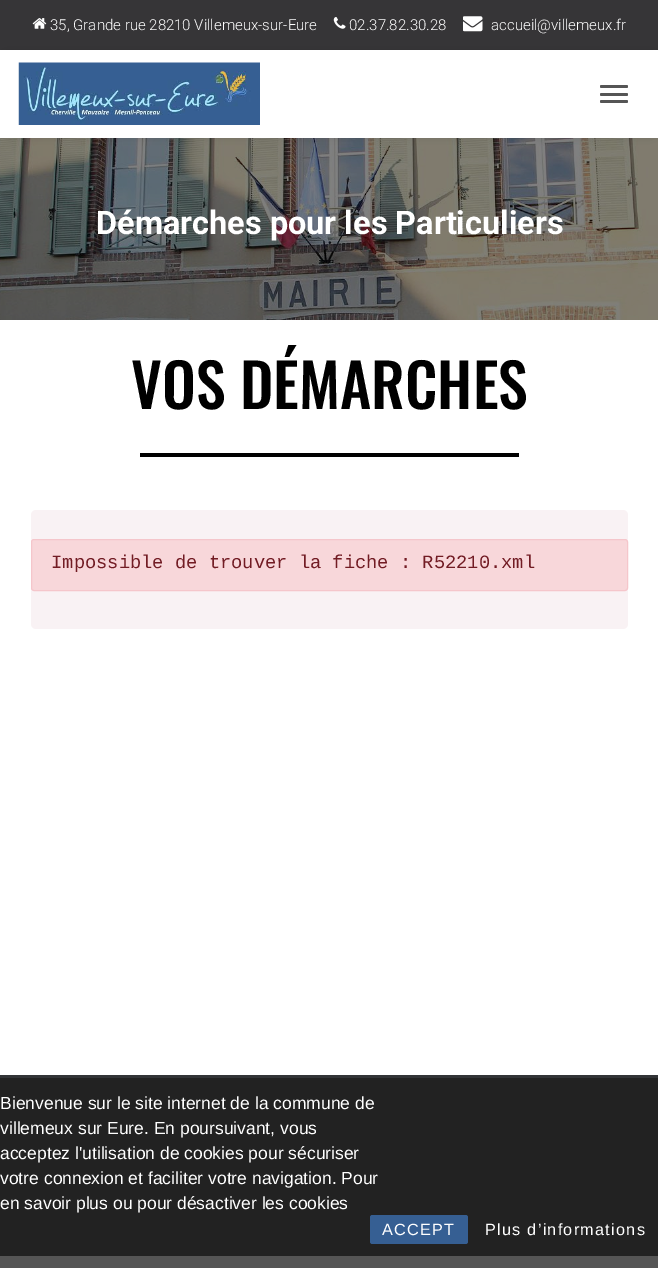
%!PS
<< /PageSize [658 1268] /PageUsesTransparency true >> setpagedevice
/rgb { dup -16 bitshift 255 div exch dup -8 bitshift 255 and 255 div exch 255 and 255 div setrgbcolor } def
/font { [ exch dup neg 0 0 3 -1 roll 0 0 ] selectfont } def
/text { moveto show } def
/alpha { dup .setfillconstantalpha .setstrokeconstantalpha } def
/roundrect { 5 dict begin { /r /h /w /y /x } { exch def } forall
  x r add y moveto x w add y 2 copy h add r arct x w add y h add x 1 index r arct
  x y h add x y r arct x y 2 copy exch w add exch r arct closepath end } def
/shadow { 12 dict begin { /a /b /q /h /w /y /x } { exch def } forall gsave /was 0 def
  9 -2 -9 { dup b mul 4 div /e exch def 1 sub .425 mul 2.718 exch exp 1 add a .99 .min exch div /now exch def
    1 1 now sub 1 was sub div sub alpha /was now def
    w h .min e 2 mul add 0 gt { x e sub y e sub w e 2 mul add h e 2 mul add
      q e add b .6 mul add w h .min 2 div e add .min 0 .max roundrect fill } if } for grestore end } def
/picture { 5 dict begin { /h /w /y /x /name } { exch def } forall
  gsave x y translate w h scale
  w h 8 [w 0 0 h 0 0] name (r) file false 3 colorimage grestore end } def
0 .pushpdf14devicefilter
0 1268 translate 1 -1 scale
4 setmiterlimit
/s1 { /Roboto-Light 15 font 16#FFFFFF rgb } def
/s2 { /Roboto-Bold 32.5 font 16#FFFFFF rgb } def
/s3 { /Oswald-Medium 60 font 16#000000 rgb } def
/s4 { /LiberationMono-Regular 18.75 font 16#721C24 rgb } def
/s5 { /LiberationSans-Regular 17.5 font 16#FFFFFF rgb } def
16#363537 rgb
0 0 658 1268 rectfill
(pic1.raw) 32 18 15 11 picture
s1
(35, Grande rue 28210 Villemeux-sur-Eure) 50 30 text
(pic2.raw) 333 17 13 12 picture
(02.37.82.30.28) 349 30 text
(pic3.raw) 463 16 20 16 picture
(accueil@villemeux.fr) 491 30 text
(pic5.raw) 0 138 658 182 picture
16#000000 rgb
8 59 643 72 0 6 0.42 shadow
16#FFFFFF rgb
0 50 658 88 rectfill
(pic4.raw) 18 62 242 63 picture
16#555555 rgb
600 85 28 3 1.5 roundrect fill
600 93 28 3 1.5 roundrect fill
600 100 28 3 1.5 roundrect fill
s2
(Démarches pour les Particuliers) 96 234 text
0 320 658 755 rectfill
s3
(VOS DÉMARCHES) 131 409 text
140 453 379 4 rectfill
16#F9F2F4 rgb
31 510 597 119 5 roundrect fill
16#F8D7DA rgb
31.5 539.5 596 51 2.5 roundrect gsave fill grestore
16#F5C6CB rgb
stroke
s4
(Impossible de trouver la fiche : R52210.xml) 51 568 text
16#323437 rgb
0 1075 658 3 rectfill
16#222222 rgb
0 1078 658 178 rectfill
16#555555 rgb
0 1256 658 12 rectfill
s5
(Bienvenue sur le site internet de la commune de) 0 1109 text
(villemeux sur Eure. En poursuivant, vous) 0 1134 text
(acceptez l'utilisation de cookies pour sécuriser) 0 1159 text
(votre connexion et faciliter votre navigation. Pour) 0 1184 text
(en savoir plus ou pour désactiver les cookies) 0 1209 text
16#365F93 rgb
370 1215 98 29 2.5 roundrect fill
/LiberationSans-Regular 16.25 font
16#FFFFFF rgb
382 1235 moveto 1.25 0 (ACCEPT) ashow
485 1235 moveto 1.25 0 (Plus d’informations) ashow
.poppdf14devicefilter showpage
